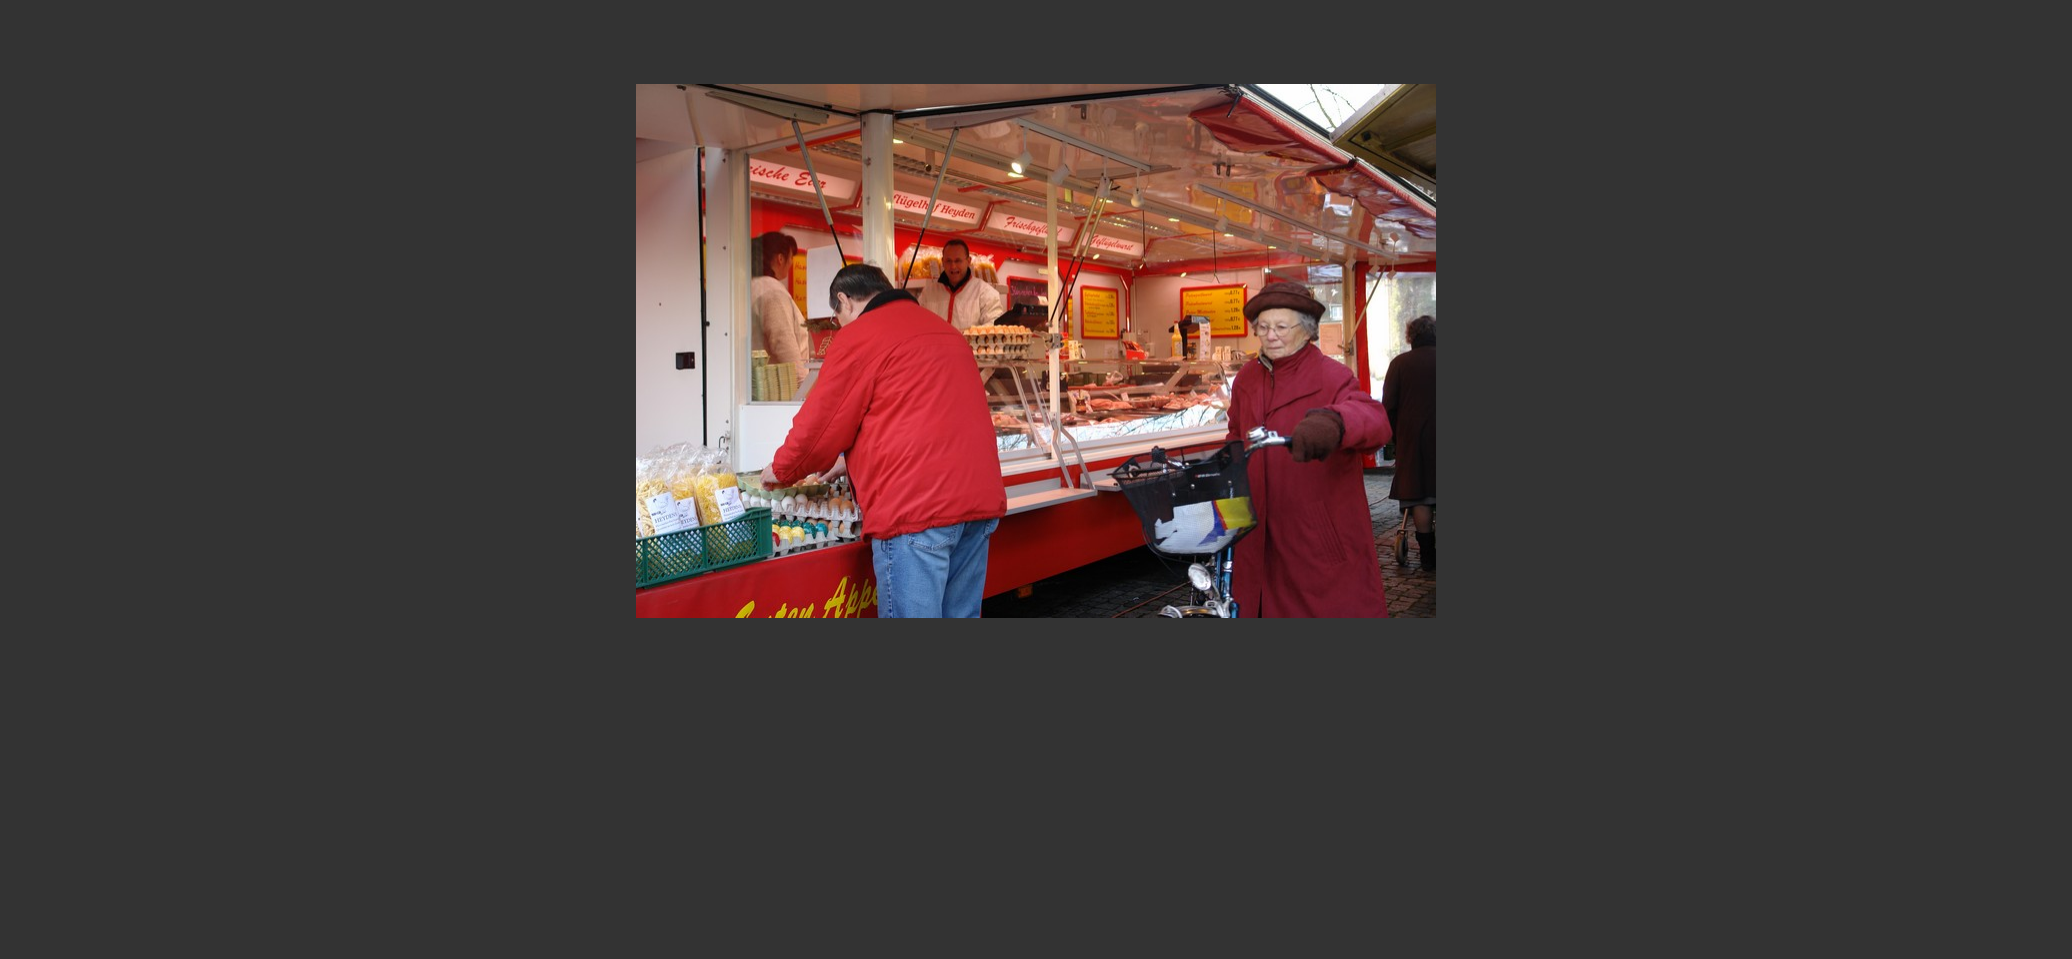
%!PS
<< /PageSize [2072 959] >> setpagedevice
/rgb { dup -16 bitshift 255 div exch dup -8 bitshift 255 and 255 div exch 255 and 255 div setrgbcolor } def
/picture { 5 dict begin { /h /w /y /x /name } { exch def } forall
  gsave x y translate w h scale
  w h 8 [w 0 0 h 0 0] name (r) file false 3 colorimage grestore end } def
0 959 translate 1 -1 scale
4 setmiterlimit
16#333333 rgb
0 0 2072 959 rectfill
(pic1.raw) 636 84 800 534 picture
showpage
